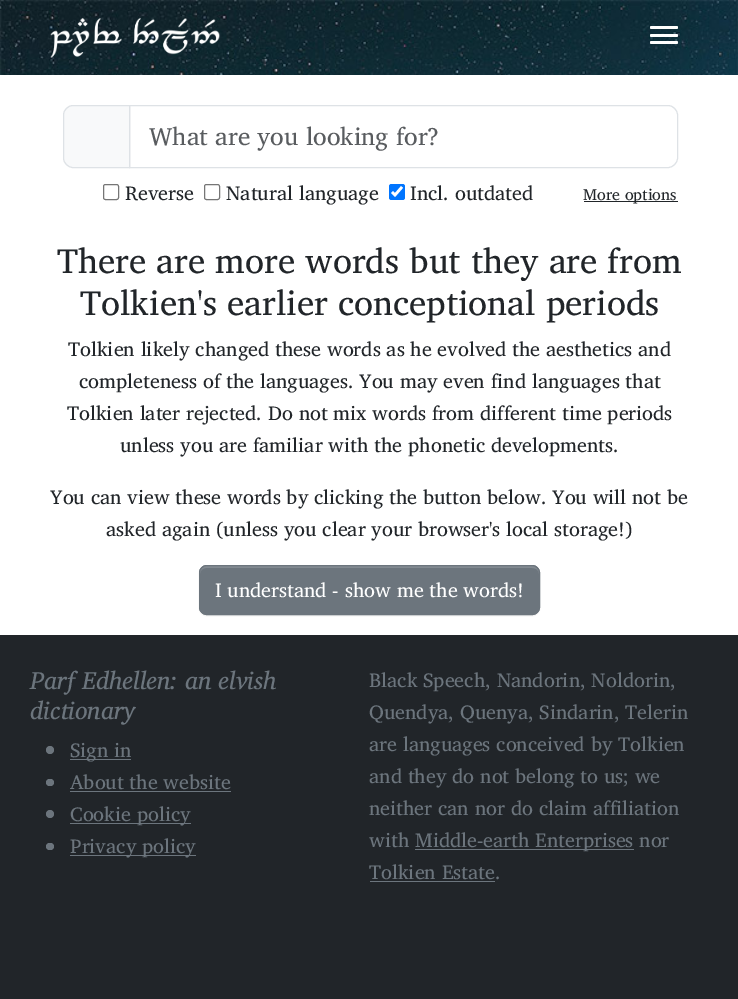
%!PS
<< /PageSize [738 999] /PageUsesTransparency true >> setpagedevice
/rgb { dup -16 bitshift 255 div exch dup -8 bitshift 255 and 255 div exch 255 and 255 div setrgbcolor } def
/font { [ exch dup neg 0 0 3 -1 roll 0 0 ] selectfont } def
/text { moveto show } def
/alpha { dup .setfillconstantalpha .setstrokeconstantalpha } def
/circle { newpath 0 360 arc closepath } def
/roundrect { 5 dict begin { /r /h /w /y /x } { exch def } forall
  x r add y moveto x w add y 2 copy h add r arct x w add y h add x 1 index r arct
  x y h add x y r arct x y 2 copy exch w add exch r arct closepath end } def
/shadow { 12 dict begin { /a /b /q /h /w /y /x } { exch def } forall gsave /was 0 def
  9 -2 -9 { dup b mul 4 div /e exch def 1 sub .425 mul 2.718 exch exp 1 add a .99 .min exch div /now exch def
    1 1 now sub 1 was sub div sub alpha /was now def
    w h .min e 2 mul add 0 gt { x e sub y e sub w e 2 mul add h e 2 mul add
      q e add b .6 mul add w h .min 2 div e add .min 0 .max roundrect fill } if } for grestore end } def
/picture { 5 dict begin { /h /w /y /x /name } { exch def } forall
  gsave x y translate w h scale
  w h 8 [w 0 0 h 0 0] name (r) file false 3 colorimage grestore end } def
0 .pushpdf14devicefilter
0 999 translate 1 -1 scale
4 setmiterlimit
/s1 { /CharisSIL-Regular 25 font 16#595C5F rgb } def
/s2 { /CharisSIL-Regular 20 font 16#212529 rgb } def
/s3 { /CharisSIL-Regular 16 font 16#212529 rgb } def
/s4 { /CharisSIL-Regular 35 font 16#212529 rgb } def
/s5 { /CharisSIL-Regular 20 font 16#FFFFFF rgb } def
/s6 { /CharisSIL-Italic 25 font 16#6C757D rgb } def
/s7 { /CharisSIL-Regular 20 font 16#6C757D rgb } def
16#212529 rgb
0 0 738 999 rectfill
16#FFFFFF rgb
0 75 738 560 rectfill
(pic1.raw) 0 0 738 75 picture
(pic2.raw) 50 17 170 41 picture
650 26 28 3 1.5 roundrect fill
650 34 28 3 1.5 roundrect fill
650 41 28 3 1.5 roundrect fill
16#F8F9FA rgb
73 105.5 moveto 129.5 105.5 lineto 129.5 167.5 lineto 73 167.5 lineto 68 167.5 63.5 163 63.5 158 curveto 63.5 115 lineto 63.5 110 68 105.5 73 105.5 curveto closepath gsave fill grestore
16#DEE2E6 rgb
stroke
129.5 105.5 moveto 668 105.5 lineto 673 105.5 677.5 110 677.5 115 curveto 677.5 158 lineto 677.5 163 673 167.5 668 167.5 curveto 129.5 167.5 lineto closepath stroke
s1
(What are you looking for?) 149 145 text
16#767676 rgb
103.5 184.5 15 15 2 roundrect stroke
s2
(Reverse) 125 200 text
16#767676 rgb
204.5 184.5 15 15 2 roundrect stroke
s2
(Natural language) 226 200 text
16#0075FF rgb
389 184 16 16 2.5 roundrect fill
16#FFFFFF rgb
2.6 setlinewidth
392 192 moveto 395 195 lineto 402 187 lineto stroke
s2
(Incl. outdated) 410 200 text
584 201 94 1 rectfill
s3
(More options) 583 200 text
s4
(There are more words but they are from) 57 273 text
(Tolkien's earlier conceptional periods) 80 315 text
s2
(Tolkien likely changed these words as he evolved the aesthetics and) 68 356 text
(completeness of the languages. You may even find languages that) 79 388 text
(Tolkien later rejected. Do not mix words from different time periods) 67 420 text
(unless you are familiar with the phonetic developments.) 120 452 text
(You can view these words by clicking the button below. You will not be) 50 504 text
(asked again \(unless you clear your browser's local storage!\)) 106 536 text
16#000000 rgb
199 566 341 50 8 0.5 0.07 shadow
16#6C757D rgb
199 565 341 50 8 roundrect fill
16#828A91 rgb
206 568 moveto 532 568 lineto 536 568 539 570 539 574 curveto 539 572 lineto 539 569 536 566 533 566 curveto 206 566 lineto 203 566 200 569 200 572 curveto 200 574 lineto 200 570 203 568 206 568 curveto closepath fill
16#6C757D rgb
1 setlinewidth
199.5 565.5 340 49 7.5 roundrect stroke
s5
(I understand - show me the words!) 215 597 text
s6
(Parf Edhellen: an elvish) 30 689 text
(dictionary) 30 719 text
50 750 4 circle fill
70 759 61 1 rectfill
s7
(Sign in) 70 757 text
46 779 8 7 3.5 roundrect fill
(About the website) 70 789 text
70 791 161 1 rectfill
50 814 4 circle fill
70 823 121 1 rectfill
(Cookie policy) 70 821 text
46 843 8 7 3.5 roundrect fill
70 855 126 1 rectfill
(Privacy policy) 70 853 text
(Black Speech, Nandorin, Noldorin,) 369 687 text
(Quendya, Quenya, Sindarin, Telerin) 369 719 text
(are languages conceived by Tolkien) 369 751 text
(and they do not belong to us; we) 369 783 text
(neither can nor do claim affiliation) 369 815 text
(with) 369 847 text
415 849 219 1 rectfill
(Middle-earth Enterprises nor) 415 847 text
(Tolkien Estate.) 369 879 text
370 881 125 1 rectfill
.poppdf14devicefilter showpage
